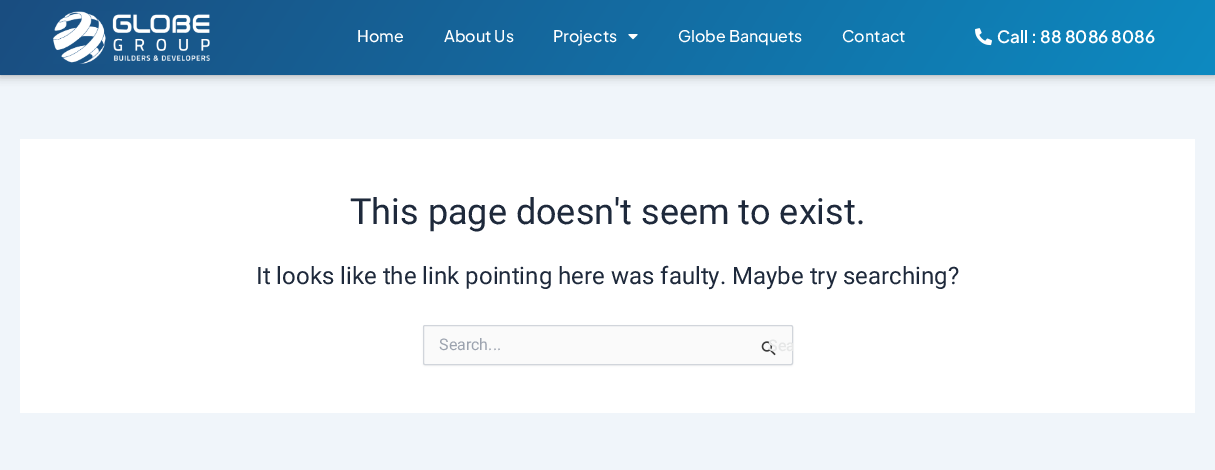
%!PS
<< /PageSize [1215 470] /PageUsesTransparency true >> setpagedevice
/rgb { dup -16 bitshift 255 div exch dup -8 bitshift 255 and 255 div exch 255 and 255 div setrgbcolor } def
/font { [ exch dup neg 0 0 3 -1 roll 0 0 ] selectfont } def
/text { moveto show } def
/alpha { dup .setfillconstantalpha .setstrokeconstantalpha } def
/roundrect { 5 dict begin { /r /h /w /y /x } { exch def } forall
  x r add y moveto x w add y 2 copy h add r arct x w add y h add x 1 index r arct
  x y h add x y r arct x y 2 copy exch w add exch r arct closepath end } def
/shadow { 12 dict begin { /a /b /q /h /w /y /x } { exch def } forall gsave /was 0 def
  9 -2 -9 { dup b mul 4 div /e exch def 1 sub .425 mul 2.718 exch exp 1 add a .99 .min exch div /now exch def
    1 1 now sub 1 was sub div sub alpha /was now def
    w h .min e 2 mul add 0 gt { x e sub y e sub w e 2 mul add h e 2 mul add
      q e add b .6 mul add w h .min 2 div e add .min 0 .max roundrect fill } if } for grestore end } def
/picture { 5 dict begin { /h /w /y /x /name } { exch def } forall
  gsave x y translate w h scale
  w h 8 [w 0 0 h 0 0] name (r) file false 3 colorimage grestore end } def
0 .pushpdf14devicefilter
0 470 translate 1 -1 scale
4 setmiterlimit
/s1 { /PlusJakartaSans-Medium 16 font 16#FFFFFF rgb } def
/s2 { /PlusJakartaSans-SemiBold 17 font 16#FFFFFF rgb } def
/s3 { /Roboto-Regular 36 font 16#1E293B rgb } def
/s4 { /Roboto-Regular 24 font 16#1E293B rgb } def
/s5 { /Roboto-Regular 16 font 16#9CA3AF rgb } def
/s6 { /Roboto-Medium 16 font 16#E6E7E7 rgb } def
16#F0F5FA rgb
0 0 1215 470 rectfill
16#000000 rgb
0 0 1215 75 0 5 0.36 shadow
gsave 0 0 moveto 1215 0 lineto 1215 75 lineto 0 75 lineto closepath clip newpath
<< /ShadingType 2 /ColorSpace /DeviceRGB /Coords [163 -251 1052 326] /Extend [true true] /Function << /FunctionType 2 /Domain [0 1] /C0 [0.102 0.302 0.502] /C1 [0.051 0.541 0.757] /N 1 >> >> shfill grestore
(pic1.raw) 53 11 157 53 picture
s1
(Home) 357 42 text
(About Us) 444 42 text
(Projects) 553 42 text
(pic2.raw) 628 34 10 6 picture
(Globe Banquets) 678 42 text
(Contact) 842 42 text
(pic3.raw) 975 28 17 18 picture
s2
(Call : 88 8086 8086) 997 43 text
20 139 1175 274 rectfill
s3
(This page doesn't seem to exist.) 350 224 text
s4
(It looks like the link pointing here was faulty. Maybe try searching?) 256 284 text
16#000000 rgb
423 326 370 40 2 1 0.05 shadow
16#FAFAFA rgb
423.5 325.5 369 39 1.5 roundrect gsave fill grestore
16#D1D5DB rgb
stroke
s5
(Search...) 439 350 text
(pic4.raw) 761 341 15 15 picture
gsave
748 325 45 42 2 roundrect clip newpath
s6
(Sea) 768 351 text
grestore
.poppdf14devicefilter showpage
